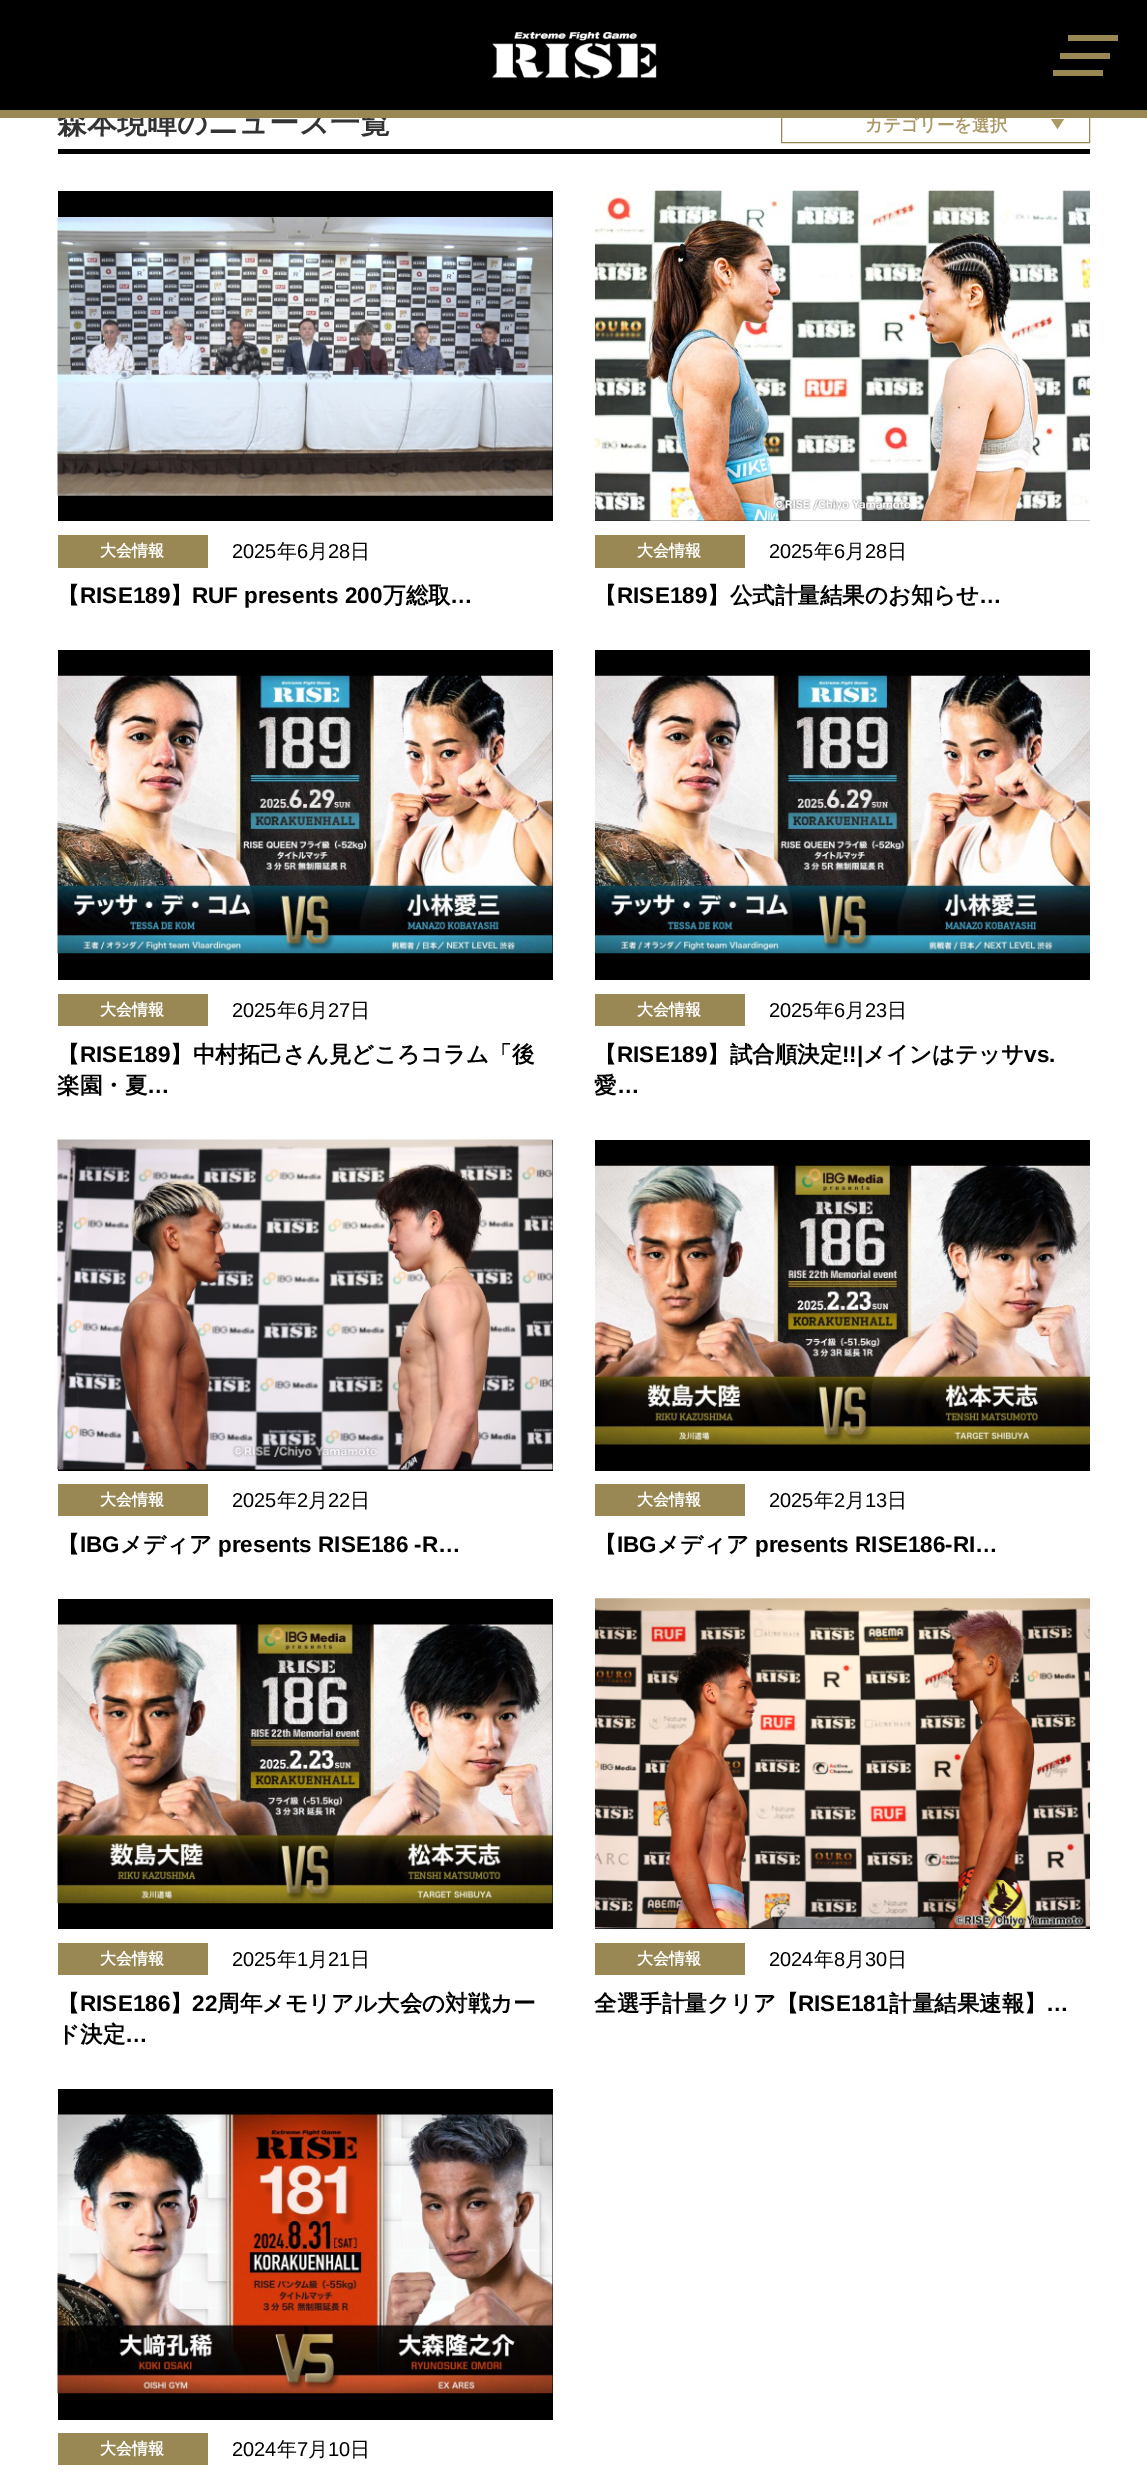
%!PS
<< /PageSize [1147 2478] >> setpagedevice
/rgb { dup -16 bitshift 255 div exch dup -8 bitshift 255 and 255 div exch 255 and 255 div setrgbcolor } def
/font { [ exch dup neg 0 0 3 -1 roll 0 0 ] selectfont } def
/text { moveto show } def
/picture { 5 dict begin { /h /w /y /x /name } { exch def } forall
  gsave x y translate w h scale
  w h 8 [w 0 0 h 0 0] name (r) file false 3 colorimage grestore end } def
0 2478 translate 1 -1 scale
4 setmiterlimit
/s1 { /WenQuanYiZenHei-Bold 30 font 16#333333 rgb } def
/s2 { /WenQuanYiZenHei-Bold 17.5 font 16#AA9966 rgb } def
/s3 { /WenQuanYiZenHei-Bold 16 font 16#FFFFFF rgb } def
/s4 { /LiberationSans-Regular 20 font 16#000000 rgb } def
/s5 { /WenQuanYiZenHei-Medium 20 font 16#000000 rgb } def
/s6 { /WenQuanYiZenHei-Bold 22.5 font 16#000000 rgb } def
/s7 { /LiberationSans-Bold 22.5 font 16#000000 rgb } def
16#FFFFFF rgb
0 0 1147 2478 rectfill
s1
(森本現暉のニュース一覧) 57 133 text
16#9A8854 rgb
781.5 105.5 308 37 rectstroke
16#000000 rgb
0 0 1147 110 rectfill
(pic1.raw) 492 32 165 47 picture
16#9A8854 rgb
1060 53 50 6 rectfill
1068 35 50 6 rectfill
1053 70 50 6 rectfill
s2
(カテゴリーを選択) 865 131 text
16#9A8854 rgb
0 110 1147 8 rectfill
16#000000 rgb
58 149 1032 5 rectfill
16#AA9966 rgb
1051 119 moveto 1064 119 lineto 1057.5 129 lineto closepath fill
16#000000 rgb
58 191 495 330 rectfill
(pic2.raw) 57 217 496 279 picture
16#9A8854 rgb
58 535 150 33 rectfill
s3
(大会情報) 100 556 text
s4
(2025) 232 558 text
s5
(年) 277 558 text
s4
(6) 297 558 text
s5
(月) 308 558 text
s4
(28) 328 558 text
s5
(日) 350 558 text
s6
(【) 57 603 text
s7
(RISE189) 80 603 text
s6
(】) 170 603 text
s7
(RUF presents 200) 192 603 text
s6
(万総取) 383 603 text
s7
(…) 450 603 text
(pic3.raw) 595 190 495 331 picture
16#9A8854 rgb
595 535 150 33 rectfill
s3
(大会情報) 637 556 text
s4
(2025) 769 558 text
s5
(年) 814 558 text
s4
(6) 834 558 text
s5
(月) 845 558 text
s4
(28) 865 558 text
s5
(日) 887 558 text
s6
(【) 594 603 text
s7
(RISE189) 617 603 text
s6
(】公式計量結果のお知らせ) 707 603 text
s7
(…) 979 603 text
58 650 495 330 rectfill
(pic4.raw) 57 675 496 279 picture
16#9A8854 rgb
58 994 150 32 rectfill
s3
(大会情報) 100 1015 text
s4
(2025) 232 1017 text
s5
(年) 277 1017 text
s4
(6) 297 1017 text
s5
(月) 308 1017 text
s4
(27) 328 1017 text
s5
(日) 350 1017 text
s6
(【) 57 1062 text
s7
(RISE189) 80 1062 text
s6
(】中村拓己さん見どころコラム「後) 170 1062 text
(楽園・夏) 57 1093 text
s7
(…) 147 1093 text
595 650 495 330 rectfill
(pic5.raw) 595 675 495 279 picture
16#9A8854 rgb
595 994 150 32 rectfill
s3
(大会情報) 637 1015 text
s4
(2025) 769 1017 text
s5
(年) 814 1017 text
s4
(6) 834 1017 text
s5
(月) 845 1017 text
s4
(23) 865 1017 text
s5
(日) 887 1017 text
s6
(【) 594 1062 text
s7
(RISE189) 617 1062 text
s6
(】試合順決定) 707 1062 text
s7
(!!|) 842 1062 text
s6
(メインはテッサ) 863 1062 text
s7
(vs.) 1024 1062 text
s6
(愛) 594 1093 text
s7
(…) 617 1093 text
58 1140 495 331 rectfill
(pic6.raw) 57 1139 496 331 picture
16#9A8854 rgb
58 1484 150 32 rectfill
s3
(大会情報) 100 1505 text
s4
(2025) 232 1507 text
s5
(年) 277 1507 text
s4
(2) 297 1507 text
s5
(月) 308 1507 text
s4
(22) 328 1507 text
s5
(日) 350 1507 text
s6
(【) 57 1552 text
s7
(IBG) 80 1552 text
s6
(メディア) 120 1552 text
s7
(presents RISE186 -R…) 218 1552 text
595 1140 495 331 rectfill
(pic7.raw) 595 1165 495 280 picture
16#9A8854 rgb
595 1484 150 32 rectfill
s3
(大会情報) 637 1505 text
s4
(2025) 769 1507 text
s5
(年) 814 1507 text
s4
(2) 834 1507 text
s5
(月) 845 1507 text
s4
(13) 865 1507 text
s5
(日) 887 1507 text
s6
(【) 594 1552 text
s7
(IBG) 617 1552 text
s6
(メディア) 657 1552 text
s7
(presents RISE186-RI…) 755 1552 text
58 1599 495 330 rectfill
(pic8.raw) 57 1624 496 280 picture
16#9A8854 rgb
58 1943 150 32 rectfill
s3
(大会情報) 100 1964 text
s4
(2025) 232 1966 text
s5
(年) 277 1966 text
s4
(1) 297 1966 text
s5
(月) 308 1966 text
s4
(21) 328 1966 text
s5
(日) 350 1966 text
s6
(【) 57 2011 text
s7
(RISE186) 80 2011 text
s6
(】) 170 2011 text
s7
(22) 192 2011 text
s6
(周年メモリアル大会の対戦カー) 217 2011 text
(ド決定) 57 2042 text
s7
(…) 125 2042 text
595 1928 495 1 rectfill
(pic9.raw) 595 1598 495 331 picture
16#9A8854 rgb
595 1943 150 32 rectfill
s3
(大会情報) 637 1964 text
s4
(2024) 769 1966 text
s5
(年) 814 1966 text
s4
(8) 834 1966 text
s5
(月) 845 1966 text
s4
(30) 865 1966 text
s5
(日) 887 1966 text
s6
(全選手計量クリア【) 594 2011 text
s7
(RISE181) 798 2011 text
s6
(計量結果速報】) 889 2011 text
s7
(…) 1046 2011 text
58 2089 495 331 rectfill
(pic10.raw) 57 2114 496 280 picture
16#9A8854 rgb
58 2433 150 32 rectfill
s3
(大会情報) 100 2454 text
s4
(2024) 232 2456 text
s5
(年) 277 2456 text
s4
(7) 297 2456 text
s5
(月) 308 2456 text
s4
(10) 328 2456 text
s5
(日) 350 2456 text
showpage
